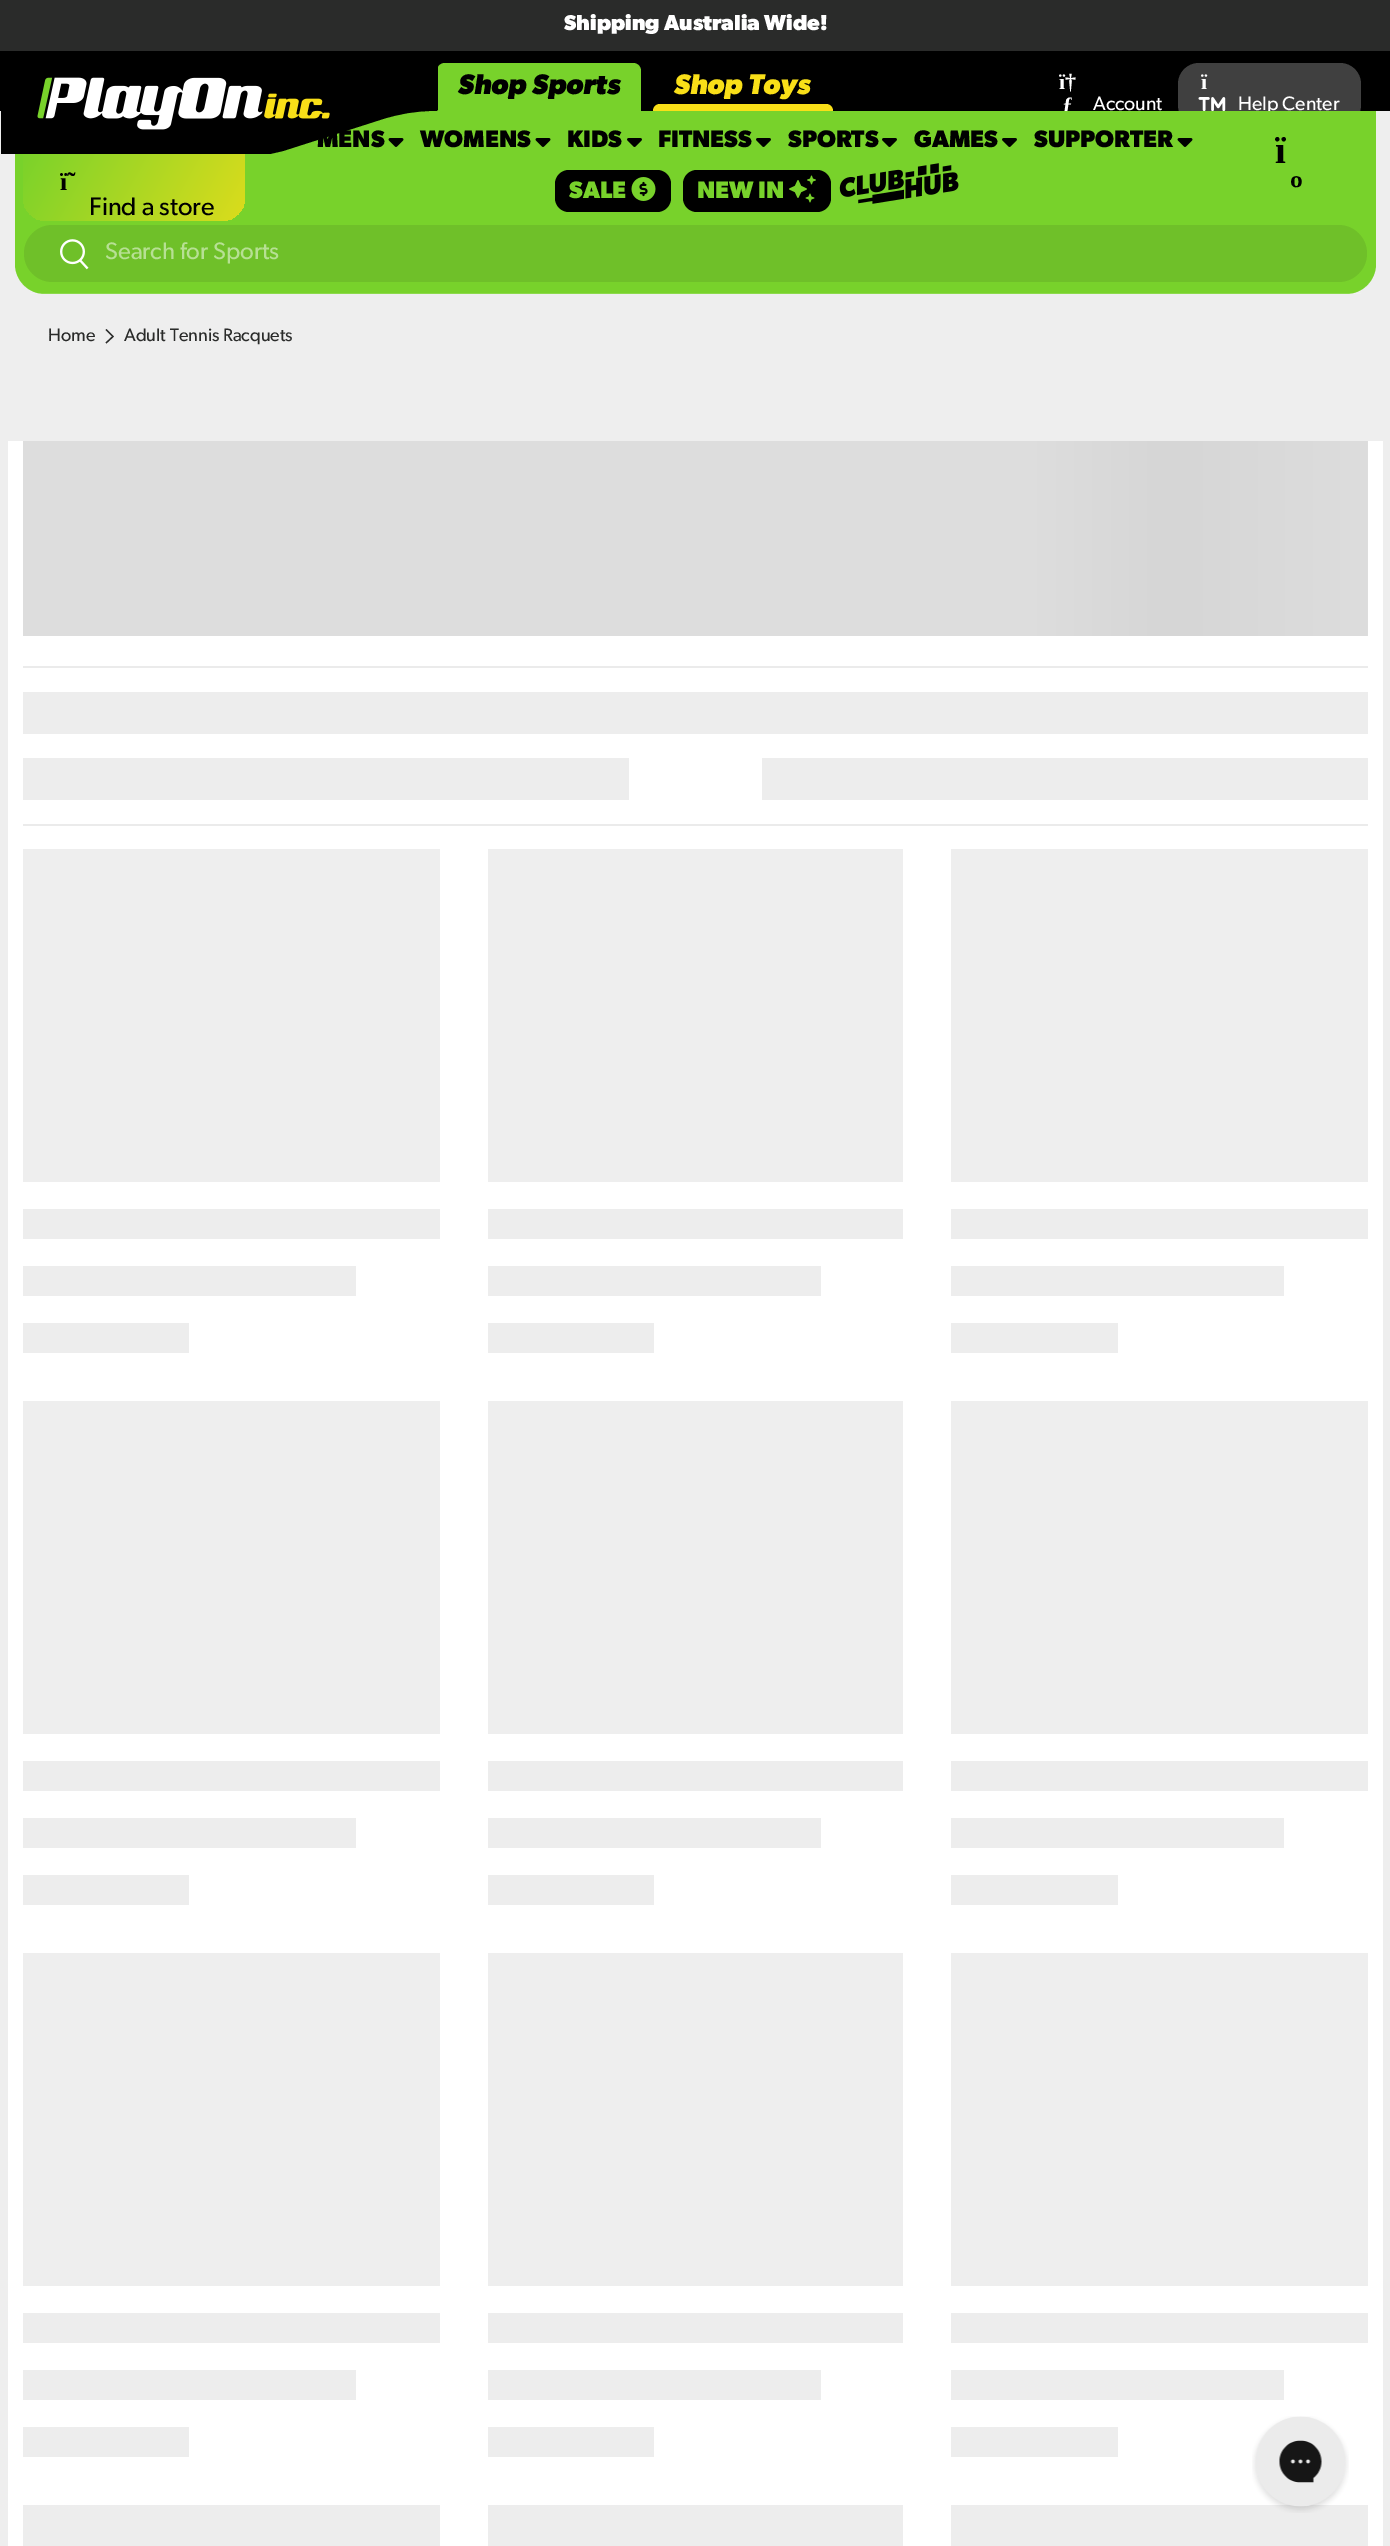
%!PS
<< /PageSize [1390 2546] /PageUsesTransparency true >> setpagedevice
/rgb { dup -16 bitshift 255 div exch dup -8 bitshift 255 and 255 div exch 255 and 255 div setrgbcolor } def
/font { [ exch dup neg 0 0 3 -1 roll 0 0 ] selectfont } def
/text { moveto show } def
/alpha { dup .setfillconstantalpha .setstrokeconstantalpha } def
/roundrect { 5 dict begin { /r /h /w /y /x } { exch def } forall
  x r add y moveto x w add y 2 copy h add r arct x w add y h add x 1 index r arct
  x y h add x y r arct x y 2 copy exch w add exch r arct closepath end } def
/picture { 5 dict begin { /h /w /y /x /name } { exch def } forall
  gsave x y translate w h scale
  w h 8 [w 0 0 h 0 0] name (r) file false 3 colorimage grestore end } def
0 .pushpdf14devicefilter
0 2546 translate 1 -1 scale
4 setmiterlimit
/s1 { /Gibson-Bold 21.6 font 16#FFFFFF rgb } def
/s2 { /LiberationSerif-Bold 22 font 16#FFFFFF rgb } def
/s3 { /Gibson-Regular 19.5 font 16#FFFFFF rgb } def
/s4 { /Gibson-BoldItalic 28.5 font 16#000000 rgb } def
/s5 { /Gibson-BoldItalic 28.5 font 16#F9DF18 rgb } def
/s6 { /Gibson-Bold 24 font 16#000000 rgb } def
/s7 { /Gibson-Bold 24 font 16#78D22B rgb } def
/s8 { /LiberationSerif-Bold 39 font 16#000000 rgb } def
/s9 { /LiberationSerif-Bold 25.5 font 16#000000 rgb } def
/s10 { /Gibson-Regular 25.5 font 16#000000 rgb } def
/s11 { /Gibson-Regular 24 font 16#B7E094 rgb } def
/s12 { /Gibson-Regular 18 font 16#2A2B2A rgb } def
16#EEEEEE rgb
0 0 1390 2546 rectfill
16#2A2B2A rgb
0 0 1390 51 rectfill
s1
(Shipping Australia Wide!) 564 30 text
16#000000 rgb
0 51 1390 60 rectfill
16#78D22B rgb
445 63 moveto 633 63 lineto 637.5 63 641 66.5 641 71 curveto 641 111 lineto 437 111 lineto 437 71 lineto 437 66.5 440.5 63 445 63 curveto closepath fill
s2
(ƒ) 1062 112 text
16#404040 rgb
1178 63 183 63 21 roundrect fill
s3
(Help Center) 1238 110 text
16#78D22B rgb
15 111 moveto 1376 111 lineto 1376 264 lineto 1376 280.5 1362.5 294 1346 294 curveto 45 294 lineto 28.5 294 15 280.5 15 264 curveto closepath fill
(pic3.raw) 388 138 16 9 picture
gsave 23 140 moveto 245 140 lineto 245 198 lineto 245 210.5 234.5 221 222 221 curveto 46 221 lineto 33.5 221 23 210.5 23 198 curveto closepath clip newpath
<< /ShadingType 2 /ColorSpace /DeviceRGB /Coords [1.2 178 269 326] /Extend [true true] /Function << /FunctionType 2 /Domain [0 1] /C0 [0.471 0.824 0.169] /C1 [0.976 0.875 0.094] /N 1 >> >> shfill grestore
16#000000 rgb
270 154 moveto 1 154 lineto 1 51 lineto 438 51 lineto 438 110 lineto 436 111 lineto 432 111 lineto 416 111 399 114 383 119 curveto 283 151 lineto closepath fill
(pic1.raw) 37 77 293 53 picture
s4
(Shop Sports) 458 94 text
s5
(Shop Toys) 674 94 text
660 104 moveto 826 104 lineto 830 104 833 107 833 111 curveto 653 111 lineto 653 107 656 104 660 104 curveto closepath fill
s2
(ï†) 1059 89 text
s3
(Account) 1093 110 text
s2
(ï) 1201 89 text
(pic2.raw) 1198 97 28 14 picture
0.15 alpha
30 293 1331 1 rectfill
1 alpha
s6
(MENS) 317 147 text
(WOMENS) 420 147 text
(pic3.raw) 535 138 16 9 picture
(KIDS) 567 147 text
(pic4.raw) 627 138 15 9 picture
(FITNESS) 658 147 text
(pic4.raw) 756 138 15 9 picture
(SPORTS) 788 147 text
(pic4.raw) 882 138 15 9 picture
(GAMES) 914 147 text
(pic4.raw) 1002 138 15 9 picture
(SUPPORTER) 1034 147 text
(pic3.raw) 1177 138 16 9 picture
555 170 116 42 14 roundrect fill
s7
(SALE) 569 198 text
(pic5.raw) 631 177 25 24 picture
16#000000 rgb
683 170 148 42 14 roundrect fill
s7
(NEW IN) 697 198 text
(pic6.raw) 789 175 27 28 picture
(pic7.raw) 839 163 120 41 picture
s8
(ï) 1275 163 text
(º) 1290 202 text
s9
(ï˜) 60 190 text
s10
(Find a store) 89 215 text
16#6FC029 rgb
24 225 1343 57 28.5 roundrect fill
(pic8.raw) 60 239 29 31 picture
s11
(Search for Sports) 105 259 text
s12
(Home) 48 341 text
1.3 setlinewidth
106 329.5 moveto 113 336.5 lineto 106 343 lineto stroke
(Adult Tennis Racquets) 124 341 text
16#FFFFFF rgb
8 441 1375 2105 rectfill
16#DDDDDD rgb
23 441 904 195 rectfill
gsave 927 441 moveto 1368 441 lineto 1368 636 lineto 927 636 lineto closepath clip newpath
<< /ShadingType 2 /ColorSpace /DeviceRGB /Coords [927 441 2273 441] /Extend [true true] /Function << /FunctionType 3 /Domain [0 1] /Functions [<< /FunctionType 2 /Domain [0 1] /C0 [0.867 0.867 0.867] /C1 [0.867 0.867 0.867] /N 1 >> << /FunctionType 2 /Domain [0 1] /C0 [0.867 0.867 0.867] /C1 [0.839 0.839 0.839] /N 1 >> << /FunctionType 2 /Domain [0 1] /C0 [0.839 0.839 0.839] /C1 [0.867 0.867 0.867] /N 1 >> << /FunctionType 2 /Domain [0 1] /C0 [0.867 0.867 0.867] /C1 [0.867 0.867 0.867] /N 1 >>] /Bounds [0.08 0.18 0.33] /Encode [0 1 0 1 0 1 0 1] >> >> shfill grestore
16#EBEBEB rgb
23 666 1345 2 rectfill
23 824 1345 2 rectfill
16#EDEDED rgb
23 692 1345 42 rectfill
23 758 606 42 rectfill
762 758 606 42 rectfill
16#EEEEEE rgb
23 849 417 333 rectfill
16#EDEDED rgb
23 1209 417 30 rectfill
23 1266 333 30 rectfill
23 1323 166 30 rectfill
16#EEEEEE rgb
488 849 415 333 rectfill
16#EDEDED rgb
488 1209 415 30 rectfill
488 1266 333 30 rectfill
488 1323 166 30 rectfill
16#EEEEEE rgb
951 849 417 333 rectfill
16#EDEDED rgb
951 1209 417 30 rectfill
951 1266 333 30 rectfill
951 1323 167 30 rectfill
16#EEEEEE rgb
23 1401 417 333 rectfill
16#EDEDED rgb
23 1761 417 30 rectfill
23 1818 333 30 rectfill
23 1875 166 30 rectfill
16#EEEEEE rgb
488 1401 415 333 rectfill
16#EDEDED rgb
488 1761 415 30 rectfill
488 1818 333 30 rectfill
488 1875 166 30 rectfill
16#EEEEEE rgb
951 1401 417 333 rectfill
16#EDEDED rgb
951 1761 417 30 rectfill
951 1818 333 30 rectfill
951 1875 167 30 rectfill
16#EEEEEE rgb
23 1953 417 333 rectfill
16#EDEDED rgb
23 2313 417 30 rectfill
23 2370 333 30 rectfill
23 2427 166 30 rectfill
16#EEEEEE rgb
488 1953 415 333 rectfill
16#EDEDED rgb
488 2313 415 30 rectfill
488 2370 333 30 rectfill
488 2427 166 30 rectfill
16#EEEEEE rgb
951 1953 417 333 rectfill
16#EDEDED rgb
951 2313 417 30 rectfill
951 2370 333 30 rectfill
951 2427 167 30 rectfill
23 2505 417 41 rectfill
488 2505 415 41 rectfill
951 2505 417 41 rectfill
(pic9.raw) 1252 2416 97 97 picture
.poppdf14devicefilter showpage
